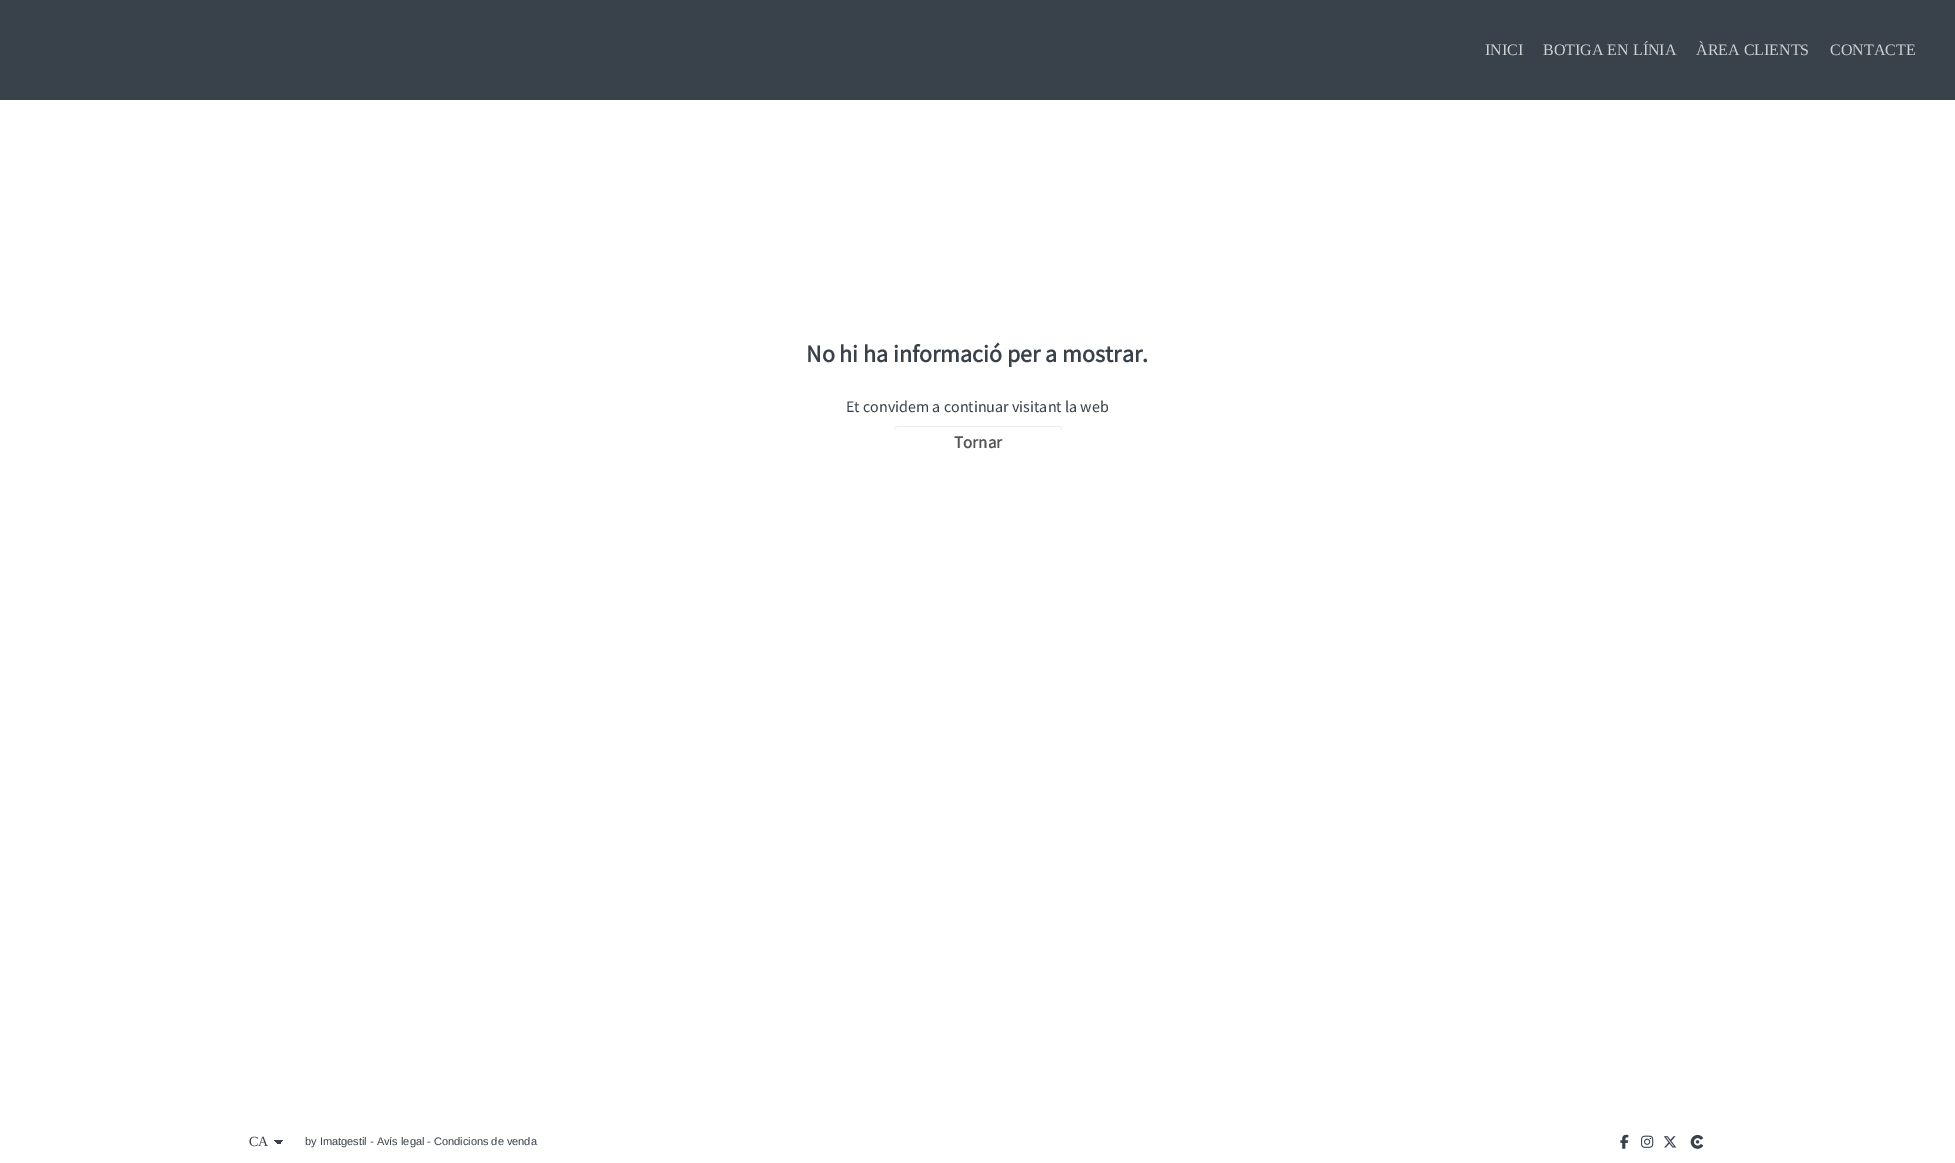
%!PS
<< /PageSize [1955 1163] >> setpagedevice
/rgb { dup -16 bitshift 255 div exch dup -8 bitshift 255 and 255 div exch 255 and 255 div setrgbcolor } def
/font { [ exch dup neg 0 0 3 -1 roll 0 0 ] selectfont } def
/text { moveto show } def
/picture { 5 dict begin { /h /w /y /x /name } { exch def } forall
  gsave x y translate w h scale
  w h 8 [w 0 0 h 0 0] name (r) file false 3 colorimage grestore end } def
0 1163 translate 1 -1 scale
4 setmiterlimit
/s1 { /LiberationSerif-Regular 16 font 16#D0D2D4 rgb } def
/s2 { /SourceSansPro-Bold 24 font 16#39414A rgb } def
/s3 { /SourceSansPro-Regular 16 font 16#39414A rgb } def
/s4 { /SourceSansPro-Bold 17 font 16#555555 rgb } def
/s5 { /LiberationSerif-Regular 14 font 16#39414A rgb } def
/s6 { /LiberationSans-Regular 11 font 16#39414A rgb } def
16#FFFFFF rgb
0 0 1955 1163 rectfill
16#39414A rgb
0 0 1955 100 rectfill
s1
(INICI) 1485 55 text
(BOTIGA EN LÍNIA) 1543 55 text
(ÀREA CLIENTS) 1696 55 text
(CONTACTE) 1830 55 text
s2
(No hi ha informació per a mostrar.) 806 362 text
s3
(Et convidem a continuar visitant la web) 846 412 text
16#ECECEC rgb
898 427 moveto 1058 427 lineto 1060 427 1062 429 1062 431 curveto 1062 430 lineto 1062 428 1060 426 1058 426 curveto 898 426 lineto 896 426 894 428 894 430 curveto 894 431 lineto 894 429 896 427 898 427 curveto closepath fill
s4
(Tornar) 954 448 text
gsave 279 1140 moveto 284 1140 lineto 284 1144 lineto 279 1144 lineto closepath clip newpath
<< /ShadingType 2 /ColorSpace /DeviceRGB /Coords [279 1140 284 1145] /Extend [true true] /Function << /FunctionType 3 /Domain [0 1] /Functions [<< /FunctionType 2 /Domain [0 1] /C0 [0.224 0.255 0.29] /C1 [0.224 0.255 0.29] /N 1 >> << /FunctionType 2 /Domain [0 1] /C0 [1 1 1] /C1 [1 1 1] /N 1 >>] /Bounds [0.5] /Encode [0 1 0 1] >> >> shfill grestore
gsave 274 1140 moveto 279 1140 lineto 279 1144 lineto 274 1144 lineto closepath clip newpath
<< /ShadingType 2 /ColorSpace /DeviceRGB /Coords [274 1145 279 1140] /Extend [true true] /Function << /FunctionType 3 /Domain [0 1] /Functions [<< /FunctionType 2 /Domain [0 1] /C0 [1 1 1] /C1 [1 1 1] /N 1 >> << /FunctionType 2 /Domain [0 1] /C0 [0.224 0.255 0.29] /C1 [0.224 0.255 0.29] /N 1 >>] /Bounds [0.5] /Encode [0 1 0 1] >> >> shfill grestore
s5
(CA) 249 1146 text
s6
(by Imatgestil - Avís legal - Condicions de venda) 305 1145 text
(pic1.raw) 1620 1134 9 15 picture
(pic2.raw) 1641 1135 13 13 picture
(pic3.raw) 1663 1136 14 12 picture
(pic4.raw) 1690 1134 14 15 picture
showpage
